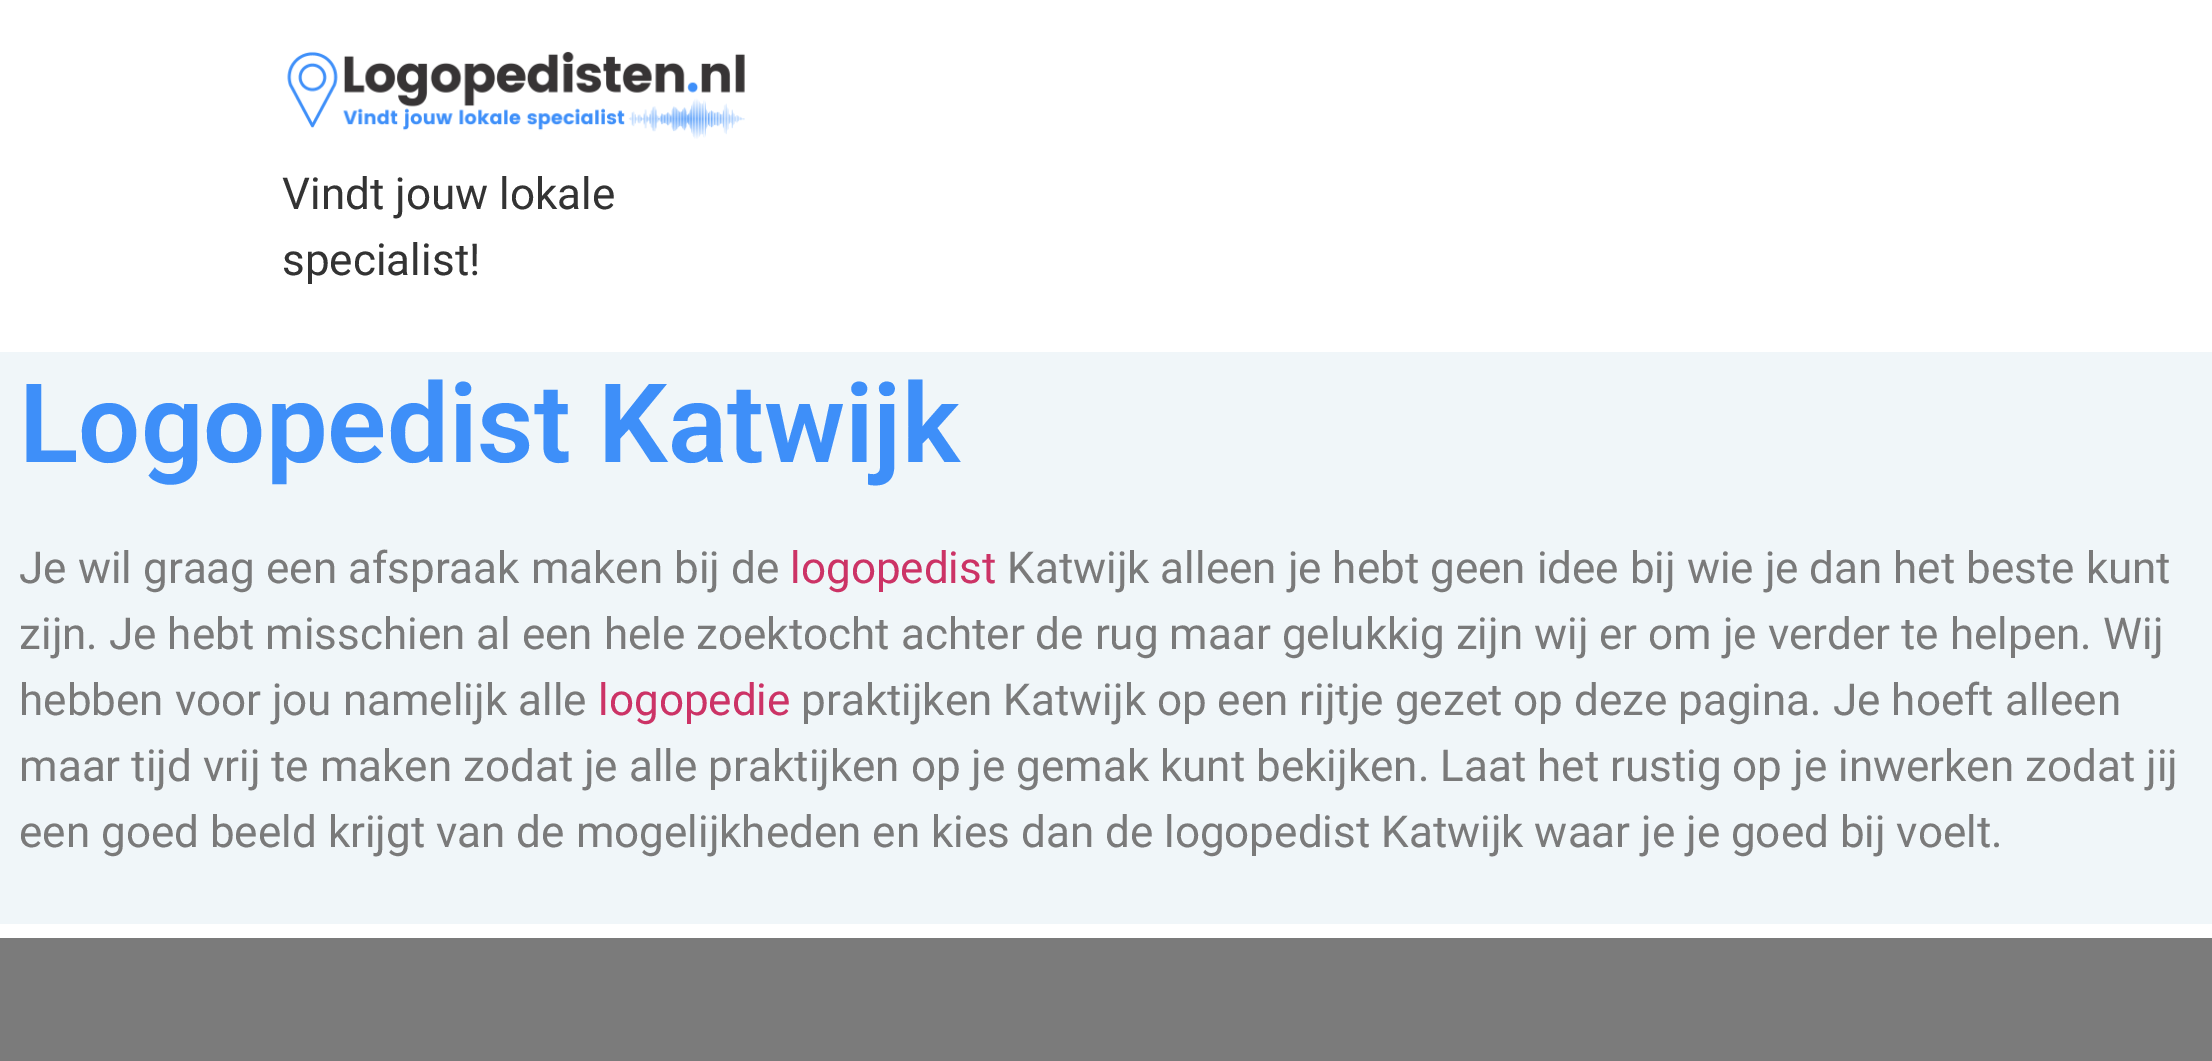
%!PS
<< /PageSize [2212 1061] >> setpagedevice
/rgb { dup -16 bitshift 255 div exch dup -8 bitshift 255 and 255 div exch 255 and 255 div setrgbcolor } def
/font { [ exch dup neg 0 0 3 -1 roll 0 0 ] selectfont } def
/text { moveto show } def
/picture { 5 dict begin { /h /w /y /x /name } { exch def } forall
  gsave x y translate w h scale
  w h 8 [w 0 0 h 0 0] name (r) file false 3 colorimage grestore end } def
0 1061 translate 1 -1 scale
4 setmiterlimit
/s1 { /Roboto-Regular 44 font 16#333333 rgb } def
/s2 { /Roboto-SemiBold 110 font 16#3E8FF9 rgb } def
/s3 { /Roboto-Regular 44 font 16#7A7A7A rgb } def
/s4 { /Roboto-Regular 44 font 16#CC3366 rgb } def
16#FFFFFF rgb
0 0 2212 1061 rectfill
(pic1.raw) 287 51 458 88 picture
s1
(Vindt jouw lokale) 282 209 text
(specialist!) 282 275 text
16#F0F6F9 rgb
0 352 2212 572 rectfill
s2
(Logopedist Katwijk) 19 462 text
s3
(Je wil graag een afspraak maken bij de) 19 583 text
s4
(logopedist) 790 583 text
s3
(Katwijk alleen je hebt geen idee bij wie je dan het beste kunt) 1007 583 text
(zijn. Je hebt misschien al een hele zoektocht achter de rug maar gelukkig zijn wij er om je verder te helpen. Wij) 19 649 text
(hebben voor jou namelijk alle) 19 715 text
s4
(logopedie) 598 715 text
s3
(praktijken Katwijk op een rijtje gezet op deze pagina. Je hoeft alleen) 801 715 text
(maar tijd vrij te maken zodat je alle praktijken op je gemak kunt bekijken. Laat het rustig op je inwerken zodat jij) 19 781 text
(een goed beeld krijgt van de mogelijkheden en kies dan de logopedist Katwijk waar je je goed bij voelt.) 19 847 text
16#7B7B7B rgb
0 938 2212 123 rectfill
showpage
